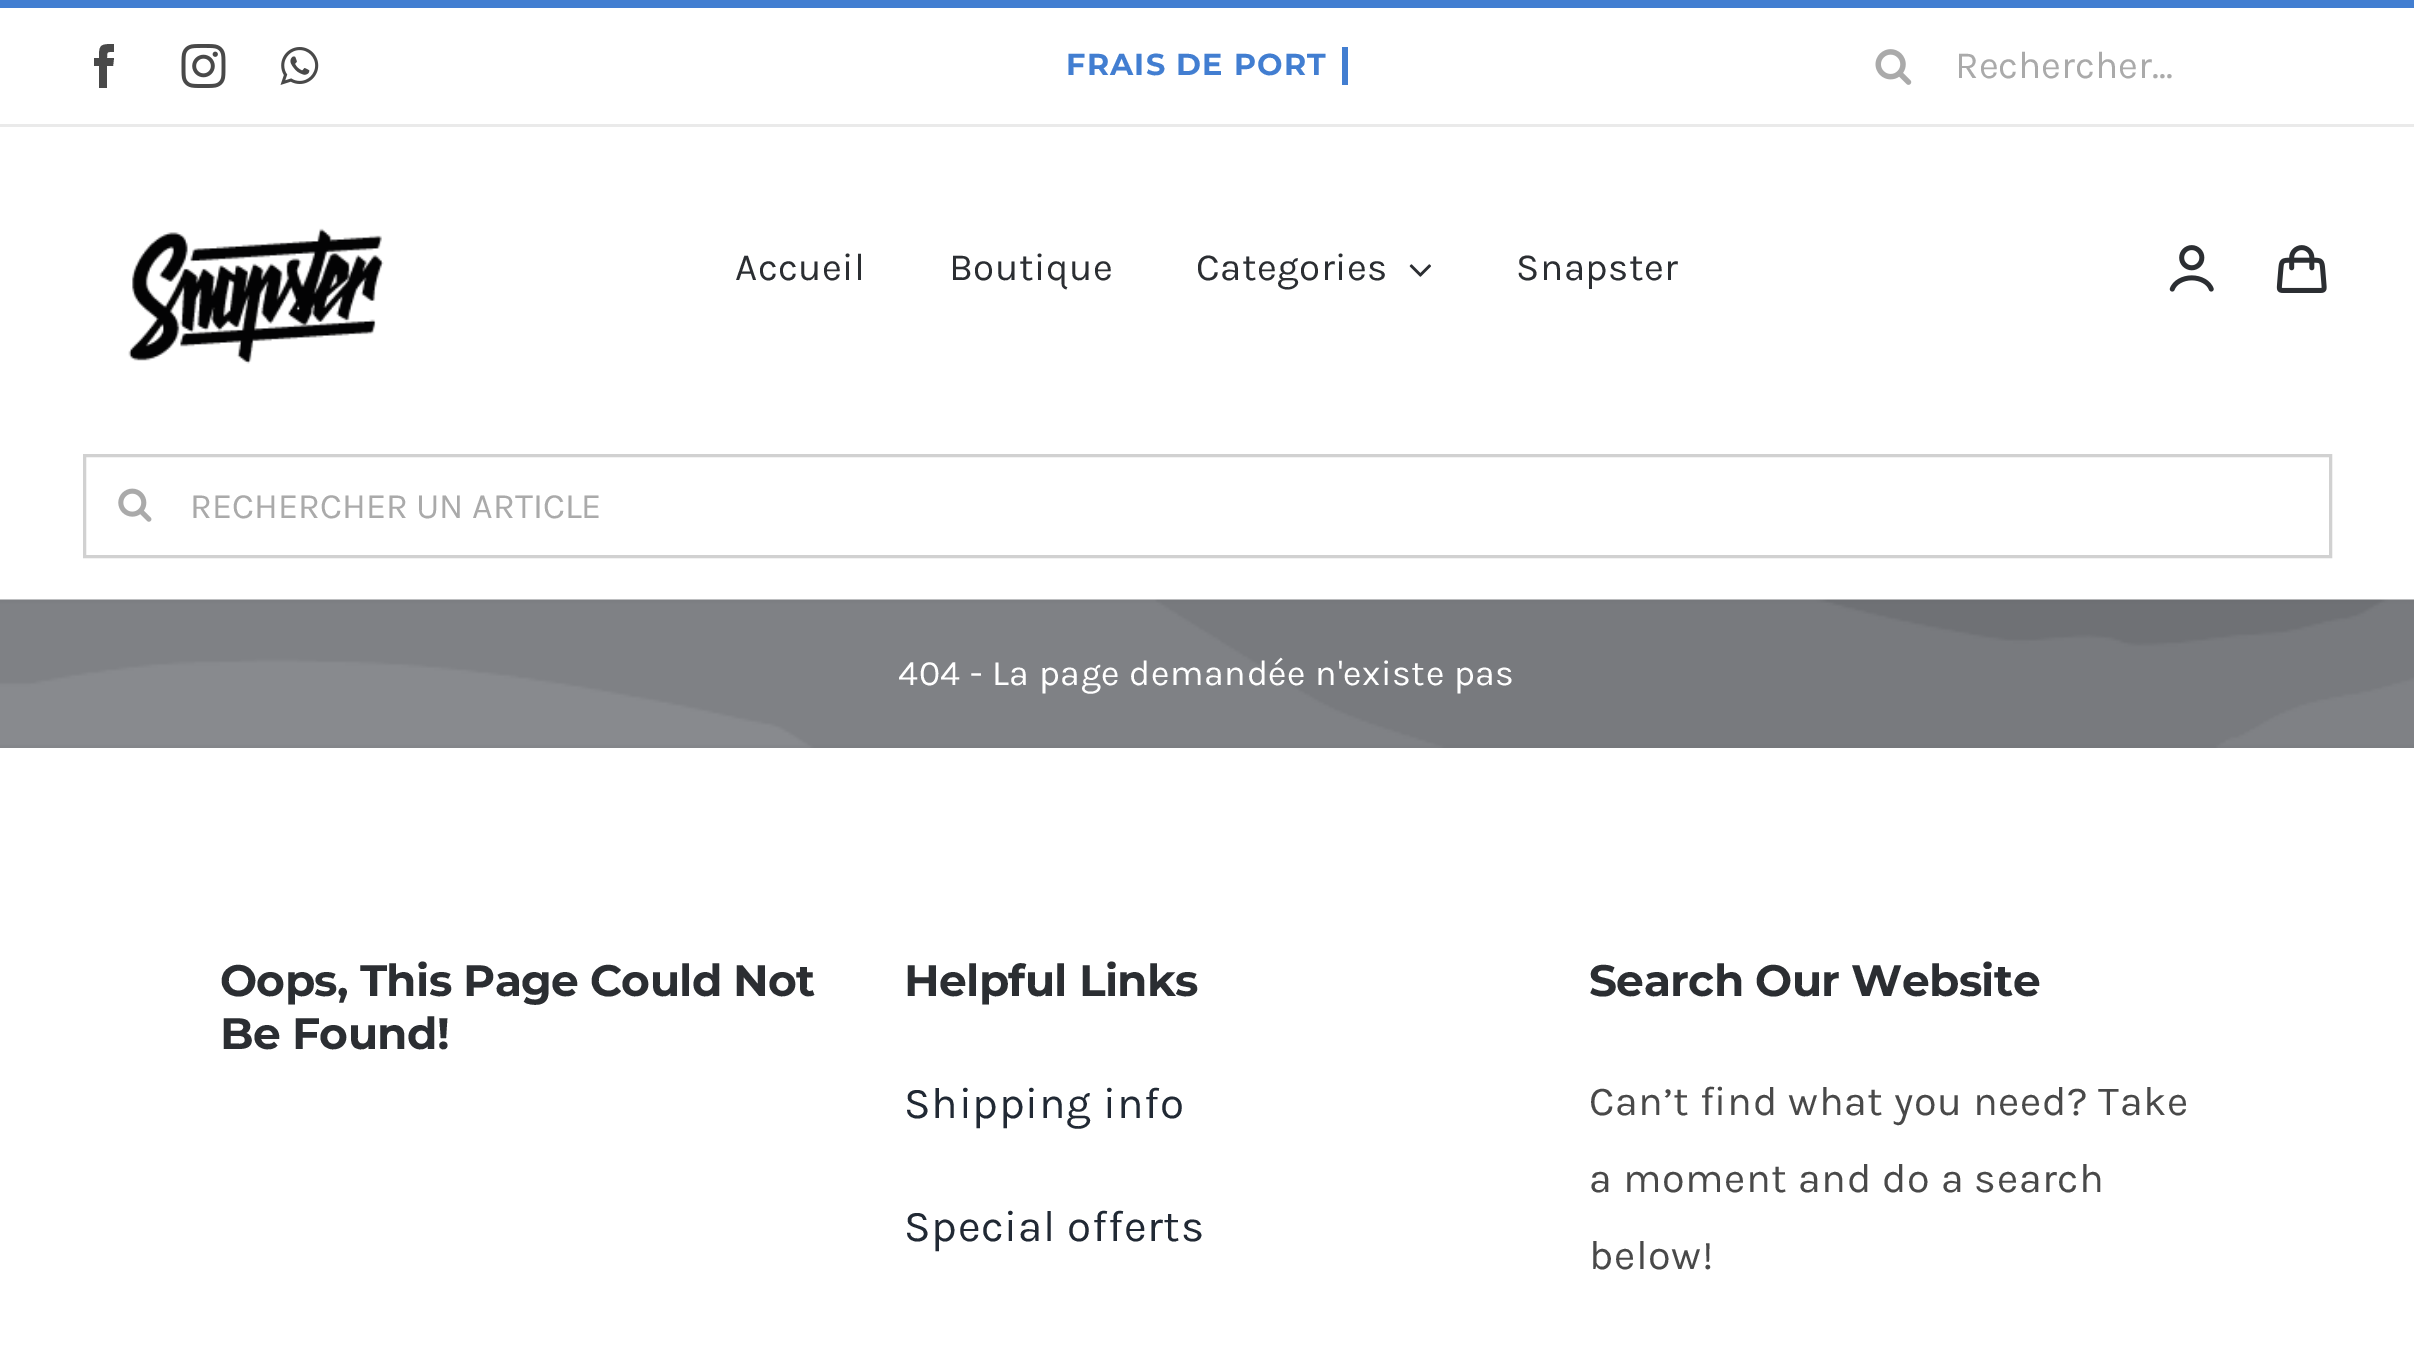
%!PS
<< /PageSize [2414 1349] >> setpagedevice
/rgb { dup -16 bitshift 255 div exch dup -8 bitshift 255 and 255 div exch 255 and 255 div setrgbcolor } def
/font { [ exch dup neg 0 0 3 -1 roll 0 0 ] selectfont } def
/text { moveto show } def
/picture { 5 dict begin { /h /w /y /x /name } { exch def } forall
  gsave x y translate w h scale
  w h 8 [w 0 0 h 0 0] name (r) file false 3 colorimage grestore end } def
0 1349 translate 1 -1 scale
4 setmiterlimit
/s1 { /Karla-Regular 38.5 font 16#AAAAAA rgb } def
/s2 { /Karla-Regular 35.75 font 16#AAAAAA rgb } def
16#FFFFFF rgb
0 0 2414 1349 rectfill
16#427ED1 rgb
0 0 2414 8 rectfill
16#494949 rgb
107 88 moveto 99 88 lineto 99 66 lineto 94 66 lineto 94 58 lineto 99 58 lineto 99 45 100 44 114 44 curveto 114 52 lineto 107 52 107 51 107 58 curveto 114 58 lineto 113 66 lineto 107 66 lineto closepath fill
(pic1.raw) 181 44 45 44 picture
(pic2.raw) 280 47 39 38 picture
/Montserrat-Thin 30.25 font
16#427ED1 rgb
1066 75 moveto 1.25 0 (FRAIS DE PORT) ashow
1342 47 6 38 rectfill
(pic3.raw) 1875 49 37 36 picture
s1
(Rechercher...) 1955 78 text
16#EAEAEA rgb
0 124 2414 3 rectfill
(pic4.raw) 128 228 256 136 picture
16#2B2E32 rgb
735 280 moveto 0.5 0 (Accueil) ashow
949 280 moveto 0.5 0 (Boutique) ashow
1196 280 moveto 0.5 0 (Categories) ashow
(pic5.raw) 1409 264 22 13 picture
1516 280 moveto 0.5 0 (Snapster) ashow
(pic6.raw) 2169 245 45 47 picture
(pic7.raw) 2276 245 51 48 picture
16#D1D1D1 rgb
3 setlinewidth
84.5 455.5 2246 101 rectstroke
(pic8.raw) 118 488 34 34 picture
s2
(RECHERCHER UN ARTICLE) 190 518 text
(pic9.raw) 0 599 2414 149 picture
16#FFFFFF rgb
898 685 moveto 0.6 0 (404 - La page demandée n'existe pas) ashow
/Montserrat-Thin 44 font
16#2B2E32 rgb
220 996 moveto -0.65 0 (Oops, This Page Could Not) ashow
220 1049 moveto -0.65 0 (Be Found!) ashow
904 996 moveto -0.65 0 (Helpful Links) ashow
/Karla-Regular 44 font
16#212934 rgb
904 1118 moveto 0.7 0 (Shipping info) ashow
904 1241 moveto 0.7 0 (Special offerts) ashow
/Montserrat-Thin 44 font
16#2B2E32 rgb
1589 996 moveto -0.65 0 (Search Our Website) ashow
/Karla-Regular 41.25 font
16#494949 rgb
1589 1115 moveto 0.6 0 (Can’t find what you need? Take) ashow
1589 1192 moveto 0.6 0 (a moment and do a search) ashow
1589 1269 moveto 0.6 0 (below!) ashow
showpage
